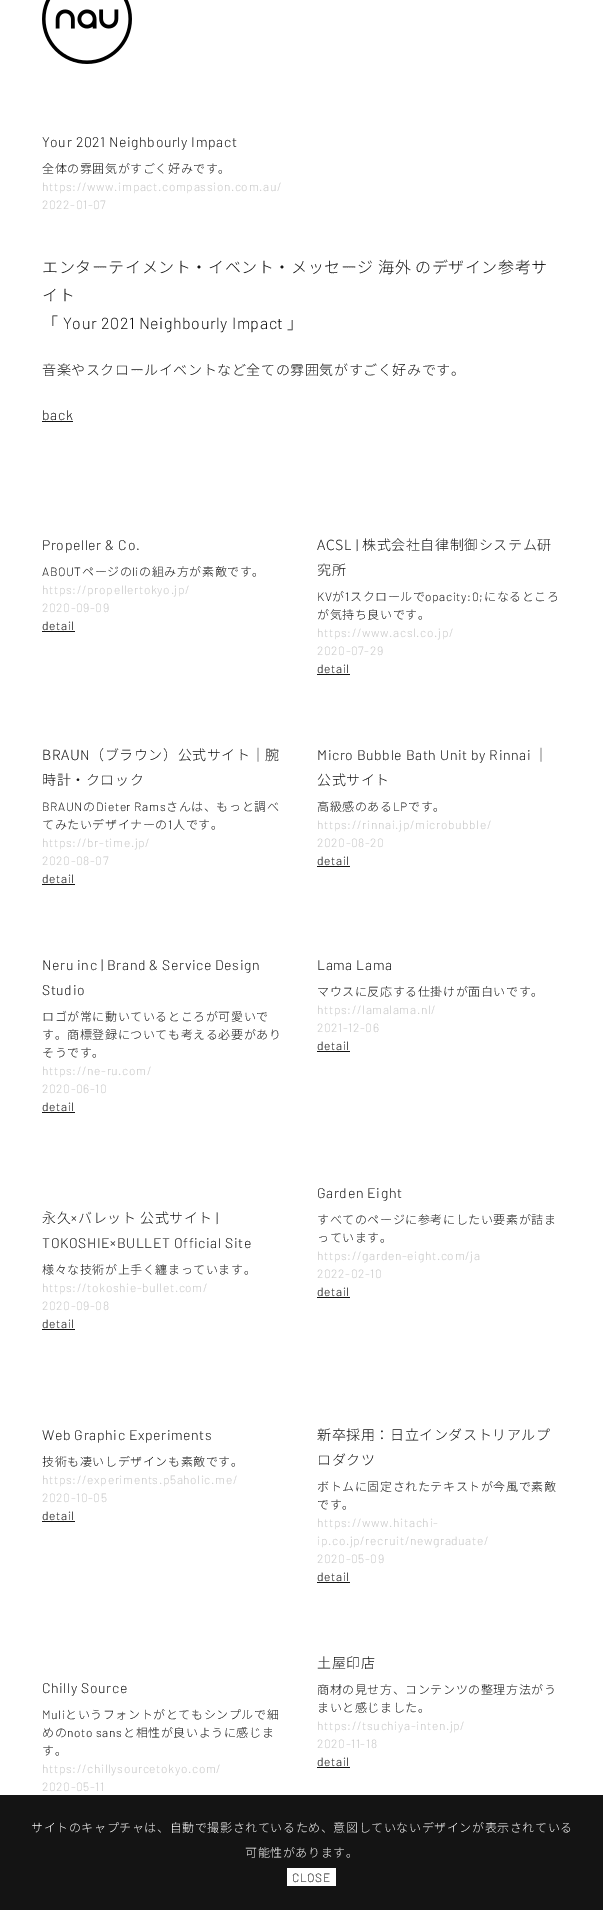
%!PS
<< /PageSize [603 1910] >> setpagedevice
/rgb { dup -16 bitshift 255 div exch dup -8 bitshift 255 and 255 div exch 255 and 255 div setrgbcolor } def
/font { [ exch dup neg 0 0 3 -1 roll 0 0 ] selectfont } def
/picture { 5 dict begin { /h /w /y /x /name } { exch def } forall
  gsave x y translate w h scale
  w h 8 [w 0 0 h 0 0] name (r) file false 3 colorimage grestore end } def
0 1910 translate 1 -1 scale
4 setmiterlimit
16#FFFFFF rgb
0 0 603 1910 rectfill
(pic1.raw) 42 0 90 64 picture
/Barlow-Light 14 font
16#141414 rgb
42 147 moveto 0.6 0 (Your 2021 Neighbourly Impact) ashow
/NotoSansJP-Thin 12 font
42 173 moveto 0.6 0 (全体の雰囲気がすごく好みです。) ashow
/Barlow-Light 12 font
16#C8C8C8 rgb
42 191 moveto 0.6 0 (https://www.impact.compassion.com.au/) ashow
42 209 moveto 0.6 0 (2022-01-07) ashow
/NotoSansJP-Thin 16 font
16#141414 rgb
42 273 moveto 0.6 0 (エンターテイメント・イベント・メッセージ) ashow
378 273 moveto 0.6 0 (海外) ashow
415 273 moveto 0.6 0 (のデザイン参考サ) ashow
42 301 moveto 0.6 0 (イト) ashow
42 329 moveto 0.6 0 (「) ashow
/Barlow-Light 16 font
63 329 moveto 0.6 0 (Your 2021 Neighbourly Impact) ashow
/NotoSansJP-Thin 16 font
287 329 moveto 0.6 0 (」) ashow
/NotoSansJP-Thin 14 font
42 375 moveto 0.6 0 (音楽やスクロールイベントなど全ての雰囲気がすごく好みです。) ashow
/Barlow-Light 14 font
42 420 moveto 0.6 0 (back) ashow
42 421 31 1 rectfill
42 550 moveto 0.6 0 (Propeller & Co.) ashow
/Barlow-Light 12 font
42 576 moveto 0.6 0 (ABOUT) ashow
/NotoSansJP-Thin 12 font
82 576 moveto 0.6 0 (ページの) ashow
/Barlow-Light 12 font
132 576 moveto 0.6 0 (li) ashow
/NotoSansJP-Thin 12 font
139 576 moveto 0.6 0 (の組み方が素敵です。) ashow
/Barlow-Light 12 font
16#C8C8C8 rgb
42 594 moveto 0.6 0 (https://propellertokyo.jp/) ashow
42 612 moveto 0.6 0 (2020-09-09) ashow
16#141414 rgb
42 630 moveto 0.6 0 (detail) ashow
42 631 33 1 rectfill
/NotoSansJP-Thin 14 font
317 550 moveto 0.6 0 (ACSL) ashow
/Barlow-Light 14 font
356 550 moveto 0.6 0 (|) ashow
/NotoSansJP-Thin 14 font
362 550 moveto 0.6 0 (株式会社自律制御システム研) ashow
317 575 moveto 0.6 0 (究所) ashow
/Barlow-Light 12 font
317 601 moveto 0.6 0 (KV) ashow
/NotoSansJP-Thin 12 font
332 601 moveto 0.6 0 (が) ashow
/Barlow-Light 12 font
345 601 moveto 0.6 0 (1) ashow
/NotoSansJP-Thin 12 font
350 601 moveto 0.6 0 (スクロールで) ashow
/Barlow-Light 12 font
425 601 moveto 0.6 0 (opacity:0;) ashow
/NotoSansJP-Thin 12 font
484 601 moveto 0.6 0 (になるところ) ashow
317 619 moveto 0.6 0 (が気持ち良いです。) ashow
/Barlow-Light 12 font
16#C8C8C8 rgb
317 637 moveto 0.6 0 (https://www.acsl.co.jp/) ashow
317 655 moveto 0.6 0 (2020-07-29) ashow
16#141414 rgb
317 673 moveto 0.6 0 (detail) ashow
317 674 33 1 rectfill
/NotoSansJP-Thin 14 font
42 760 moveto 0.6 0 (BRAU) ashow
/Barlow-Light 14 font
80 760 moveto 0.6 0 (N) ashow
/NotoSansJP-Thin 14 font
90 760 moveto 0.6 0 (（ブラウン）公式サイト｜腕) ashow
42 785 moveto 0.6 0 (時計・クロック) ashow
/Barlow-Light 12 font
42 811 moveto 0.6 0 (BRAUN) ashow
/NotoSansJP-Thin 12 font
83 811 moveto 0.6 0 (の) ashow
/Barlow-Light 12 font
96 811 moveto 0.6 0 (Dieter Rams) ashow
/NotoSansJP-Thin 12 font
166 811 moveto 0.6 0 (さんは、もっと調べ) ashow
42 829 moveto 0.6 0 (てみたいデザイナーの) ashow
/Barlow-Light 12 font
168 829 moveto 0.6 0 (1) ashow
/NotoSansJP-Thin 12 font
173 829 moveto 0.6 0 (人です。) ashow
/Barlow-Light 12 font
16#C8C8C8 rgb
42 847 moveto 0.6 0 (https://br-time.jp/) ashow
42 865 moveto 0.6 0 (2020-08-07) ashow
16#141414 rgb
42 883 moveto 0.6 0 (detail) ashow
42 884 33 1 rectfill
/Barlow-Light 14 font
317 760 moveto 0.6 0 (Micro Bubble Bath Unit by Rinnai) ashow
/NotoSansJP-Thin 14 font
534 760 moveto 0.6 0 (｜) ashow
317 785 moveto 0.6 0 (公式サイト) ashow
/NotoSansJP-Thin 12 font
317 811 moveto 0.6 0 (高級感のある) ashow
/Barlow-Light 12 font
393 811 moveto 0.6 0 (LP) ashow
/NotoSansJP-Thin 12 font
408 811 moveto 0.6 0 (です。) ashow
/Barlow-Light 12 font
16#C8C8C8 rgb
317 829 moveto 0.6 0 (https://rinnai.jp/microbubble/) ashow
317 847 moveto 0.6 0 (2020-08-20) ashow
16#141414 rgb
317 865 moveto 0.6 0 (detail) ashow
317 866 33 1 rectfill
/Barlow-Light 14 font
42 970 moveto 0.6 0 (Neru inc | Brand & Service Design) ashow
42 995 moveto 0.6 0 (Studio) ashow
/NotoSansJP-Thin 12 font
42 1021 moveto 0.6 0 (ロゴが常に動いているところが可愛いで) ashow
42 1039 moveto 0.6 0 (す。商標登録についても考える必要があり) ashow
42 1057 moveto 0.6 0 (そうです。) ashow
/Barlow-Light 12 font
16#C8C8C8 rgb
42 1075 moveto 0.6 0 (https://ne-ru.com/) ashow
42 1093 moveto 0.6 0 (2020-06-10) ashow
16#141414 rgb
42 1111 moveto 0.6 0 (detail) ashow
42 1112 33 1 rectfill
/Barlow-Light 14 font
317 970 moveto 0.6 0 (Lama Lama) ashow
/NotoSansJP-Thin 12 font
317 996 moveto 0.6 0 (マウスに反応する仕掛けが面白いです。) ashow
/Barlow-Light 12 font
16#C8C8C8 rgb
317 1014 moveto 0.6 0 (https://lamalama.nl/) ashow
317 1032 moveto 0.6 0 (2021-12-06) ashow
16#141414 rgb
317 1050 moveto 0.6 0 (detail) ashow
317 1051 33 1 rectfill
/NotoSansJP-Thin 14 font
42 1223 moveto 0.6 0 (永久) ashow
/Barlow-Light 14 font
71 1223 moveto 0.6 0 (×) ashow
/NotoSansJP-Thin 14 font
78 1223 moveto 0.6 0 (バレット 公式サイト) ashow
/Barlow-Light 14 font
216 1223 moveto 0.6 0 (|) ashow
42 1248 moveto 0.6 0 (TOKOSHIE×BULLET Official Site) ashow
/NotoSansJP-Thin 12 font
42 1274 moveto 0.6 0 (様々な技術が上手く纏まっています。) ashow
/Barlow-Light 12 font
16#C8C8C8 rgb
42 1292 moveto 0.6 0 (https://tokoshie-bullet.com/) ashow
42 1310 moveto 0.6 0 (2020-09-08) ashow
16#141414 rgb
42 1328 moveto 0.6 0 (detail) ashow
42 1329 33 1 rectfill
/Barlow-Light 14 font
317 1198 moveto 0.6 0 (Garden Eight) ashow
/NotoSansJP-Thin 12 font
317 1224 moveto 0.6 0 (すべてのページに参考にしたい要素が詰ま) ashow
317 1242 moveto 0.6 0 (っています。) ashow
/Barlow-Light 12 font
16#C8C8C8 rgb
317 1260 moveto 0.6 0 (https://garden-eight.com/ja) ashow
317 1278 moveto 0.6 0 (2022-02-10) ashow
16#141414 rgb
317 1296 moveto 0.6 0 (detail) ashow
317 1297 33 1 rectfill
/Barlow-Light 14 font
42 1440 moveto 0.6 0 (Web Graphic Experiments) ashow
/NotoSansJP-Thin 12 font
42 1466 moveto 0.6 0 (技術も凄いしデザインも素敵です。) ashow
/Barlow-Light 12 font
16#C8C8C8 rgb
42 1484 moveto 0.6 0 (https://experiments.p5aholic.me/) ashow
42 1502 moveto 0.6 0 (2020-10-05) ashow
16#141414 rgb
42 1520 moveto 0.6 0 (detail) ashow
42 1521 33 1 rectfill
/NotoSansJP-Thin 14 font
317 1440 moveto 0.6 0 (新卒採用：日立インダストリアルプ) ashow
317 1465 moveto 0.6 0 (ロダクツ) ashow
/NotoSansJP-Thin 12 font
317 1491 moveto 0.6 0 (ボトムに固定されたテキストが今風で素敵) ashow
317 1509 moveto 0.6 0 (です。) ashow
/Barlow-Light 12 font
16#C8C8C8 rgb
317 1527 moveto 0.6 0 (https://www.hitachi-) ashow
317 1545 moveto 0.6 0 (ip.co.jp/recruit/newgraduate/) ashow
317 1563 moveto 0.6 0 (2020-05-09) ashow
16#141414 rgb
317 1581 moveto 0.6 0 (detail) ashow
317 1582 33 1 rectfill
/Barlow-Light 14 font
42 1693 moveto 0.6 0 (Chilly Source) ashow
/Barlow-Light 12 font
42 1719 moveto 0.6 0 (Muli) ashow
/NotoSansJP-Thin 12 font
65 1719 moveto 0.6 0 (というフォントがとてもシンプルで細) ashow
42 1737 moveto 0.6 0 (めの) ashow
/Barlow-Light 12 font
67 1737 moveto 0.6 0 (noto sans) ashow
/NotoSansJP-Thin 12 font
123 1737 moveto 0.6 0 (と相性が良いように感じま) ashow
42 1755 moveto 0.6 0 (す。) ashow
/Barlow-Light 12 font
16#C8C8C8 rgb
42 1773 moveto 0.6 0 (https://chillysourcetokyo.com/) ashow
42 1791 moveto 0.6 0 (2020-05-11) ashow
/NotoSansJP-Thin 14 font
16#141414 rgb
317 1668 moveto 0.6 0 (土屋印店) ashow
/NotoSansJP-Thin 12 font
317 1694 moveto 0.6 0 (商材の見せ方、コンテンツの整理方法がう) ashow
317 1712 moveto 0.6 0 (まいと感じました。) ashow
/Barlow-Light 12 font
16#C8C8C8 rgb
317 1730 moveto 0.6 0 (https://tsuchiya-inten.jp/) ashow
317 1748 moveto 0.6 0 (2020-11-18) ashow
16#141414 rgb
317 1766 moveto 0.6 0 (detail) ashow
317 1767 33 1 rectfill
0 1795 603 115 rectfill
/NotoSansJP-Thin 12 font
16#FFFFFF rgb
31 1832 moveto 0.6 0 (サイトのキャプチャは、自動で撮影されているため、意図していないデザインが表示されている) ashow
245 1857 moveto 0.6 0 (可能性があります。) ashow
287 1868 49 18 rectfill
/Barlow-Light 12 font
16#141414 rgb
292 1882 moveto 0.6 0 (CLOSE) ashow
showpage
